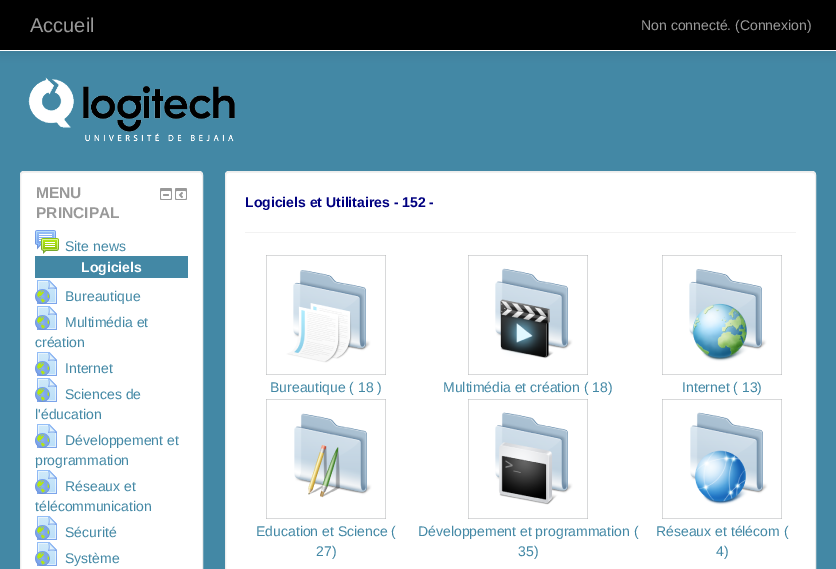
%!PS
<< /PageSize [836 569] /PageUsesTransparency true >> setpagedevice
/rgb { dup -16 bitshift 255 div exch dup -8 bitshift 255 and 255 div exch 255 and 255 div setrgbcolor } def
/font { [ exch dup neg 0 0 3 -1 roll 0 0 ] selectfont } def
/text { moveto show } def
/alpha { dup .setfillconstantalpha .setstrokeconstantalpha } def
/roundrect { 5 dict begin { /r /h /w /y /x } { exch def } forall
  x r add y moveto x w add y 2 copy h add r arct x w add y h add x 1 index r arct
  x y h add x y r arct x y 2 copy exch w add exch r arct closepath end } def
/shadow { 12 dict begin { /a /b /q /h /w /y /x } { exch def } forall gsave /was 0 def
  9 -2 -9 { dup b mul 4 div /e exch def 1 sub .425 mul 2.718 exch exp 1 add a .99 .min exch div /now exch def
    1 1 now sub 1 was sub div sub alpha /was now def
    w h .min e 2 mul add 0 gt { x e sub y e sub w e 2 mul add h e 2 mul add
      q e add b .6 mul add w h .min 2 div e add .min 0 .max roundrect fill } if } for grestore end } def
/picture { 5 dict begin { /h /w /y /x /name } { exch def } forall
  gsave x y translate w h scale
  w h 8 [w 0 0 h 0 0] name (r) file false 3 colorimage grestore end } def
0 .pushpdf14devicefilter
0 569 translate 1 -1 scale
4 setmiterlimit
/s1 { /LiberationSans-Regular 20 font 16#999999 rgb } def
/s2 { /LiberationSans-Regular 14 font 16#999999 rgb } def
/s3 { /LiberationSans-Bold 15.5 font 16#999999 rgb } def
/s4 { /LiberationSans-Regular 14 font 16#4388A5 rgb } def
/s5 { /LiberationSans-Bold 14 font 16#FFFFFF rgb } def
/s6 { /LiberationSans-Bold 14 font 16#000080 rgb } def
16#4388A5 rgb
0 0 836 569 rectfill
16#000000 rgb
0 1 836 51 0 5 0.1 shadow
0 0 836 50 rectfill
16#FFFFFF rgb
0 50 836 1 rectfill
s1
(Accueil) 30 32 text
s2
(Non connecté. \(Connexion\)) 641 30 text
(pic1.raw) 28 77 207 65 picture
16#FFFFFF rgb
20 171 183 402 4 roundrect fill
16#F2F2F2 rgb
24 173 moveto 200 173 lineto 201 174 lineto 202 176 lineto 202 175 lineto 202 173 201 172 199 172 curveto 24 172 lineto 22 172 21 173 21 175 curveto 21 176 lineto 21 174 22 173 24 173 curveto closepath fill
16#EDEDED rgb
20.5 171.5 182 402 3.5 roundrect stroke
s3
(MENU) 36 198 text
(PRINCIPAL) 36 218 text
(pic2.raw) 160 188 12 12 picture
(pic3.raw) 175 188 12 12 picture
(pic4.raw) 35 230 24 24 picture
s4
(Site news) 65 251 text
35 256 153 22 rectfill
s5
(Logiciels) 81 272 text
(pic5.raw) 35 280 22 24 picture
s4
(Bureautique) 65 301 text
(pic6.raw) 35 306 22 24 picture
(Multimédia et) 65 327 text
(création) 35 347 text
(pic5.raw) 35 352 22 24 picture
(Internet) 65 373 text
(pic6.raw) 35 378 22 24 picture
(Sciences de) 65 399 text
(l'éducation) 35 419 text
(pic5.raw) 35 424 22 24 picture
(Développement et) 65 445 text
(programmation) 35 465 text
(pic7.raw) 35 470 22 24 picture
(Réseaux et) 65 491 text
(télécommunication) 35 511 text
(pic8.raw) 35 516 22 24 picture
(Sécurité) 65 537 text
(pic5.raw) 35 542 22 24 picture
(Système) 65 563 text
16#FFFFFF rgb
225 171 591 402 4 roundrect fill
16#F2F2F2 rgb
229 173 moveto 812 173 lineto 814 173 815 174 815 176 curveto 815 175 lineto 815 173 814 172 812 172 curveto 229 172 lineto 227 172 226 173 226 175 curveto 226 176 lineto 226 174 227 173 229 173 curveto closepath fill
16#EDEDED rgb
225.5 171.5 590 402 3.5 roundrect stroke
s6
(Logiciels et Utilitaires - 152 -) 245 207 text
16#F2F2F2 rgb
245 232 551 1 rectfill
(pic9.raw) 266 255 120 120 picture
(pic10.raw) 468 255 120 120 picture
(pic11.raw) 662 255 120 120 picture
s4
(Bureautique \( 18 \)) 270 392 text
(Multimédia et création \( 18\)) 443 392 text
(Internet \( 13\)) 682 392 text
(pic12.raw) 266 399 120 120 picture
(pic13.raw) 468 399 120 120 picture
(pic14.raw) 662 399 120 120 picture
(Education et Science \() 256 536 text
(27\)) 316 556 text
(Développement et programmation \() 418 536 text
(35\)) 518 556 text
(Réseaux et télécom \() 656 536 text
(4\)) 716 556 text
.poppdf14devicefilter showpage
